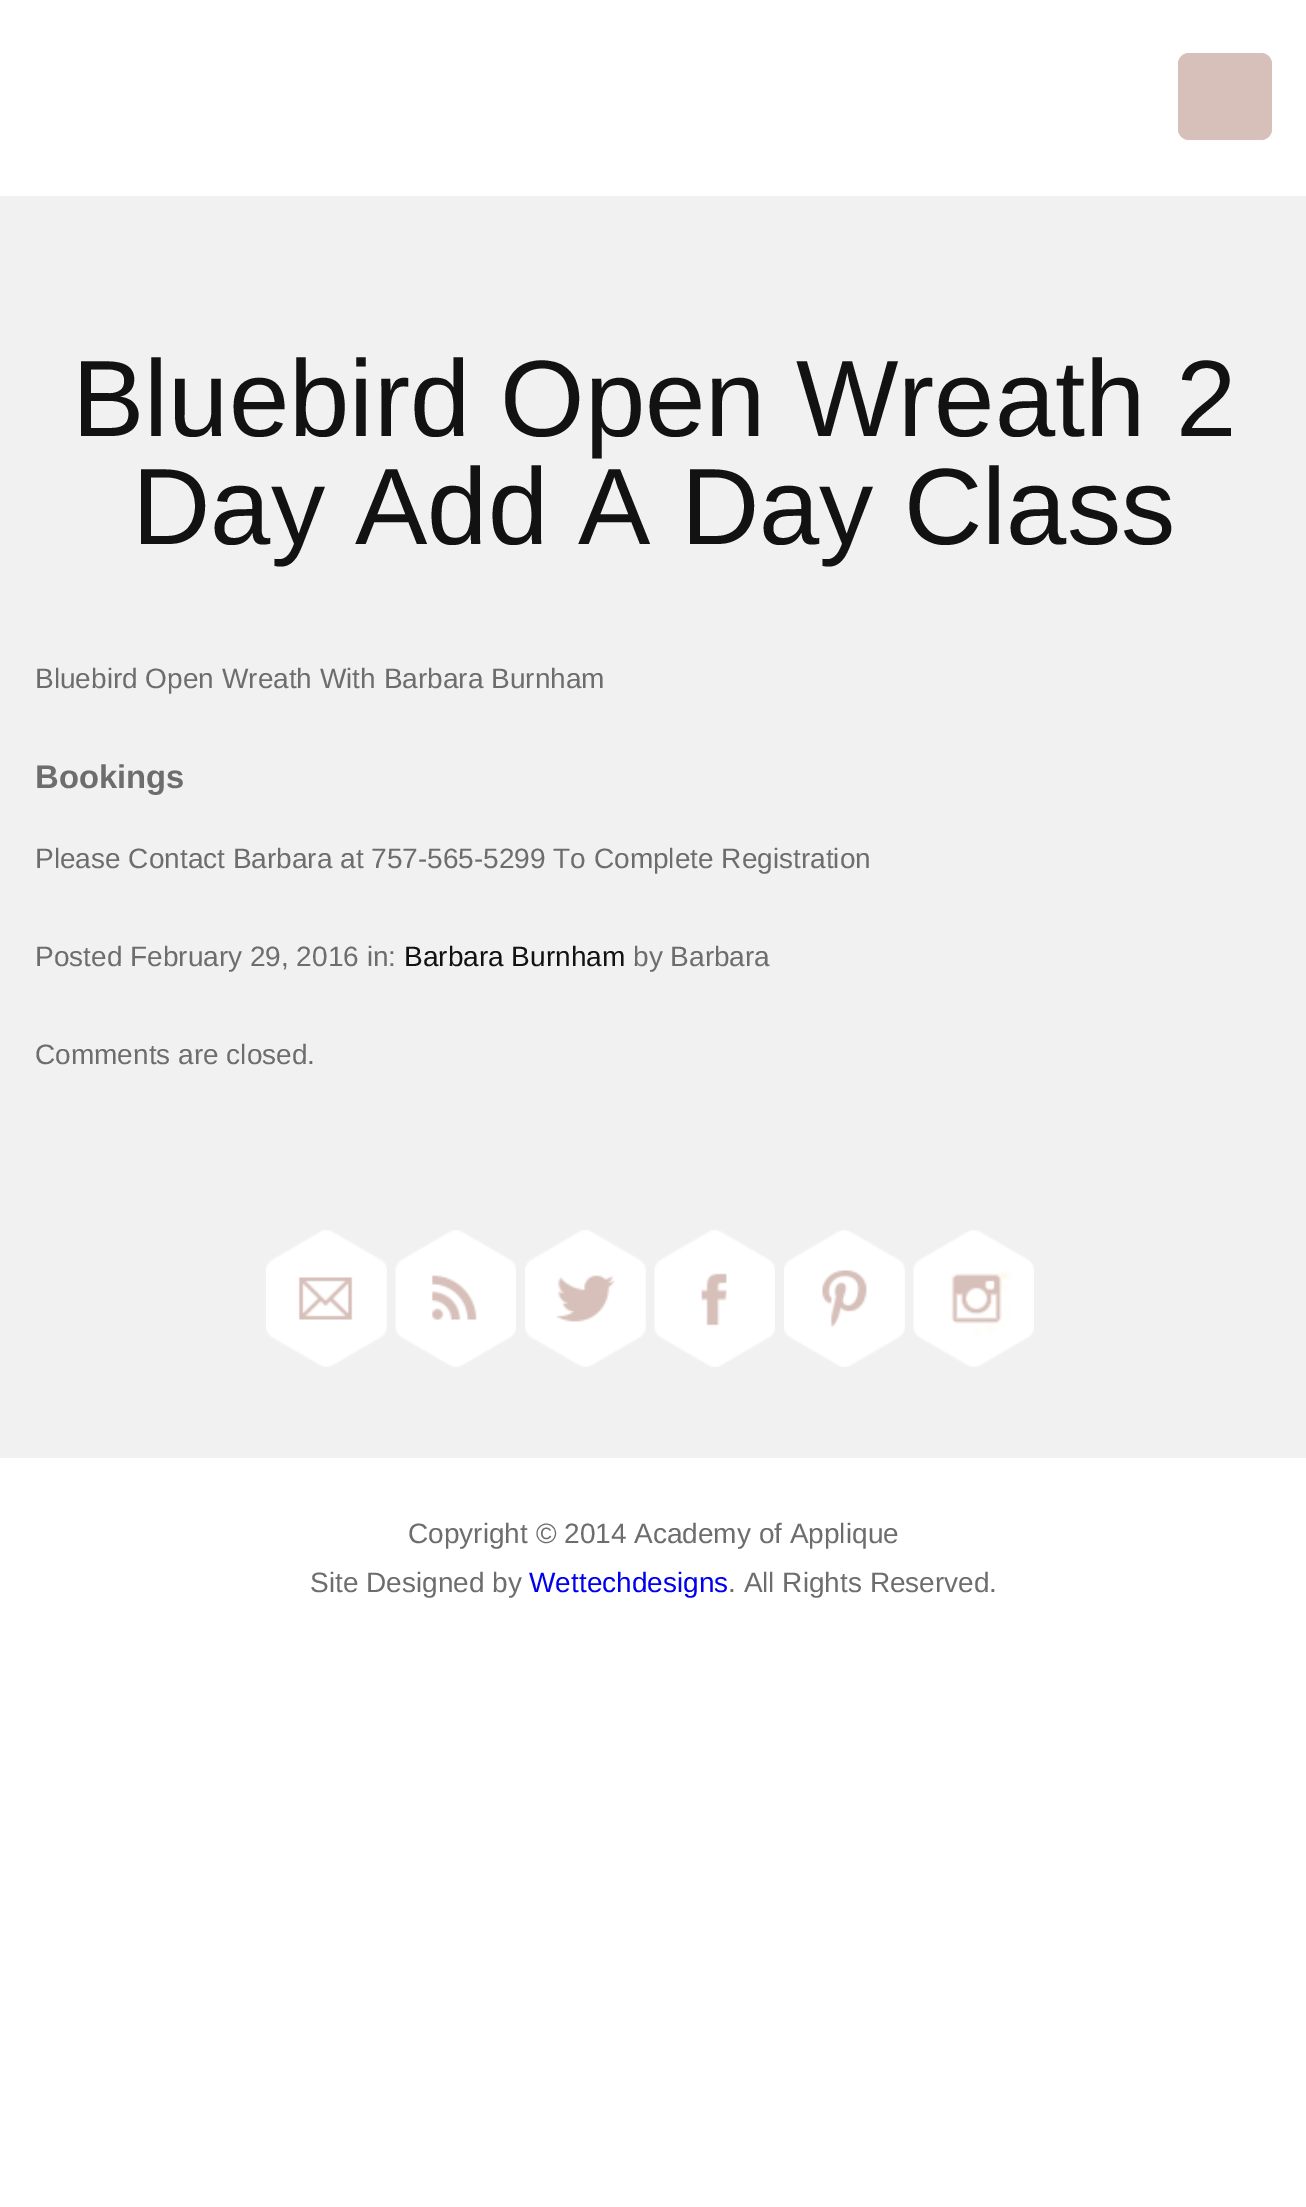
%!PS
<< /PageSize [1306 2207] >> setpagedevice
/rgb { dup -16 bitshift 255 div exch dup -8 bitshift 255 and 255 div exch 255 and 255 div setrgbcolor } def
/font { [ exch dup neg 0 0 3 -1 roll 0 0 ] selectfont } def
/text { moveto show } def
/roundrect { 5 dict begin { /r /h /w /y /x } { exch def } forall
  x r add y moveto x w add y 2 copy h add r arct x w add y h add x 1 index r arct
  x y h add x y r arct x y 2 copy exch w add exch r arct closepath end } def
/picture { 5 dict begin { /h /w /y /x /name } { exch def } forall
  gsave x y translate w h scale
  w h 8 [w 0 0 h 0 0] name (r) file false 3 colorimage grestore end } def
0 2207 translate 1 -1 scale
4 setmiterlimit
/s1 { /LiberationSans-Regular 108.5 font 16#121212 rgb } def
/s2 { /LiberationSans-Regular 28 font 16#6D6D6D rgb } def
/s3 { /LiberationSans-Bold 32.75 font 16#6D6D6D rgb } def
/s4 { /LiberationSans-Regular 28 font 16#121212 rgb } def
/s5 { /LiberationSans-Regular 28 font 16#0000EE rgb } def
16#FFFFFF rgb
0 0 1306 2207 rectfill
16#D7C0BA rgb
1178 53 94 87 11 roundrect fill
16#F1F1F1 rgb
0 196 1306 1262 rectfill
s1
(Bluebird Open Wreath 2) 72 436 text
(Day Add A Day Class) 132 544 text
s2
(Bluebird Open Wreath With Barbara Burnham) 35 688 text
s3
(Bookings) 35 788 text
s2
(Please Contact Barbara at 757-565-5299 To Complete Registration) 35 868 text
(Posted February 29, 2016 in:) 35 966 text
s4
(Barbara Burnham) 404 966 text
s2
(by Barbara) 633 966 text
(Comments are closed.) 35 1064 text
(pic1.raw) 266 1230 121 137 picture
(pic2.raw) 395 1230 121 137 picture
(pic3.raw) 525 1230 121 137 picture
(pic4.raw) 654 1230 121 137 picture
(pic5.raw) 784 1230 121 137 picture
(pic6.raw) 913 1230 121 137 picture
(Copyright © 2014 Academy of Applique) 408 1543 text
(Site Designed by) 310 1592 text
s5
(Wettechdesigns) 529 1592 text
s2
(. All Rights Reserved.) 728 1592 text
showpage
